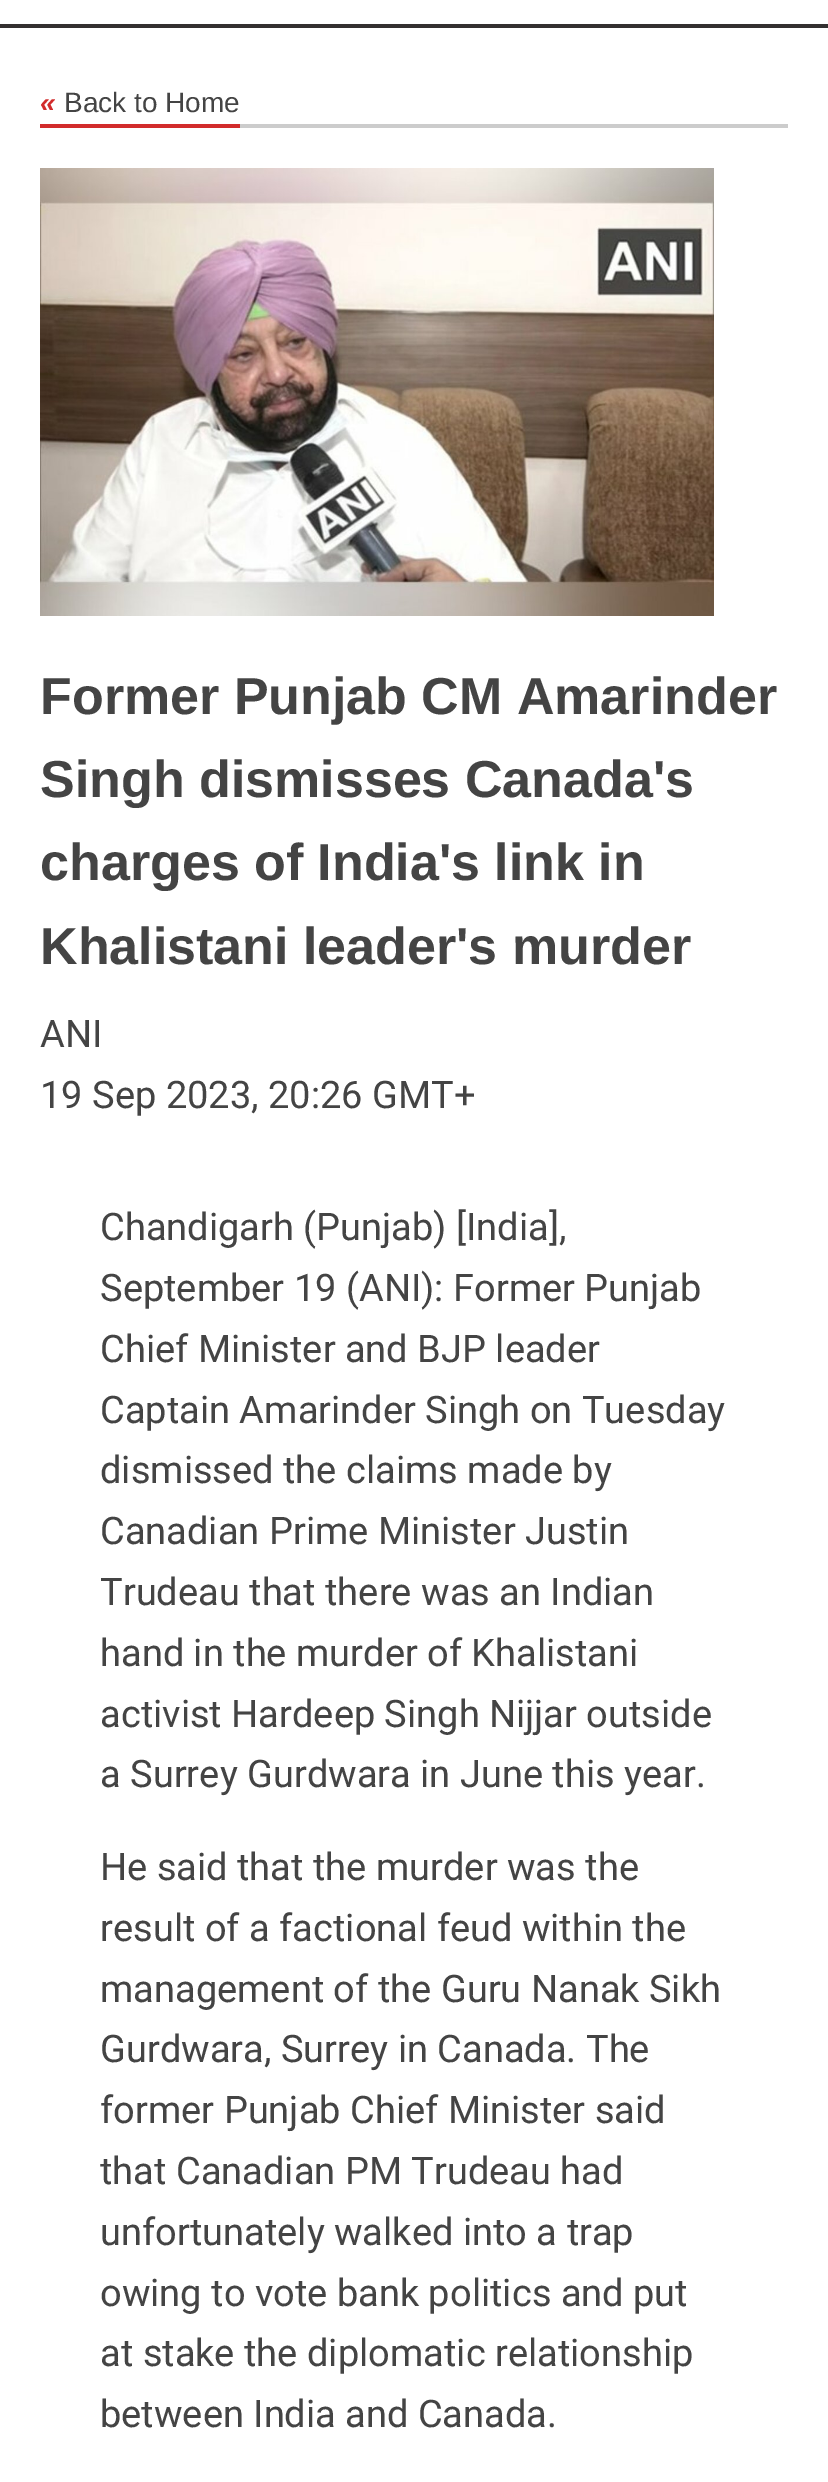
%!PS
<< /PageSize [828 2482] >> setpagedevice
/rgb { dup -16 bitshift 255 div exch dup -8 bitshift 255 and 255 div exch 255 and 255 div setrgbcolor } def
/font { [ exch dup neg 0 0 3 -1 roll 0 0 ] selectfont } def
/text { moveto show } def
/picture { 5 dict begin { /h /w /y /x /name } { exch def } forall
  gsave x y translate w h scale
  w h 8 [w 0 0 h 0 0] name (r) file false 3 colorimage grestore end } def
0 2482 translate 1 -1 scale
4 setmiterlimit
/s1 { /LiberationSans-BoldItalic 28 font 16#D22B2B rgb } def
/s2 { /LiberationSans-Regular 28 font 16#444444 rgb } def
/s3 { /LiberationSans-Bold 52 font 16#444444 rgb } def
/s4 { /Roboto-Regular 38 font 16#444444 rgb } def
16#FFFFFF rgb
0 0 828 2482 rectfill
16#333030 rgb
0 24 828 4 rectfill
16#CCCCCC rgb
240 124 548 4 rectfill
s1
(«) 40 112 text
s2
(Back to Home) 64 112 text
16#D22B2B rgb
40 124 200 4 rectfill
(pic1.raw) 40 168 674 448 picture
s3
(Former Punjab CM Amarinder) 40 714 text
(Singh dismisses Canada's) 40 797 text
(charges of India's link in) 40 880 text
(Khalistani leader's murder) 40 964 text
s4
(ANI) 40 1047 text
(19 Sep 2023, 20:26 GMT+) 40 1108 text
(Chandigarh \(Punjab\) [India],) 100 1240 text
(September 19 \(ANI\): Former Punjab) 100 1301 text
(Chief Minister and BJP leader) 100 1362 text
(Captain Amarinder Singh on Tuesday) 100 1423 text
(dismissed the claims made by) 100 1483 text
(Canadian Prime Minister Justin) 100 1544 text
(Trudeau that there was an Indian) 100 1605 text
(hand in the murder of Khalistani) 100 1666 text
(activist Hardeep Singh Nijjar outside) 100 1727 text
(a Surrey Gurdwara in June this year.) 100 1787 text
(He said that the murder was the) 100 1880 text
(result of a factional feud within the) 100 1941 text
(management of the Guru Nanak Sikh) 100 2002 text
(Gurdwara, Surrey in Canada. The) 100 2062 text
(former Punjab Chief Minister said) 100 2123 text
(that Canadian PM Trudeau had) 100 2184 text
(unfortunately walked into a trap) 100 2245 text
(owing to vote bank politics and put) 100 2306 text
(at stake the diplomatic relationship) 100 2366 text
(between India and Canada.) 100 2427 text
showpage
